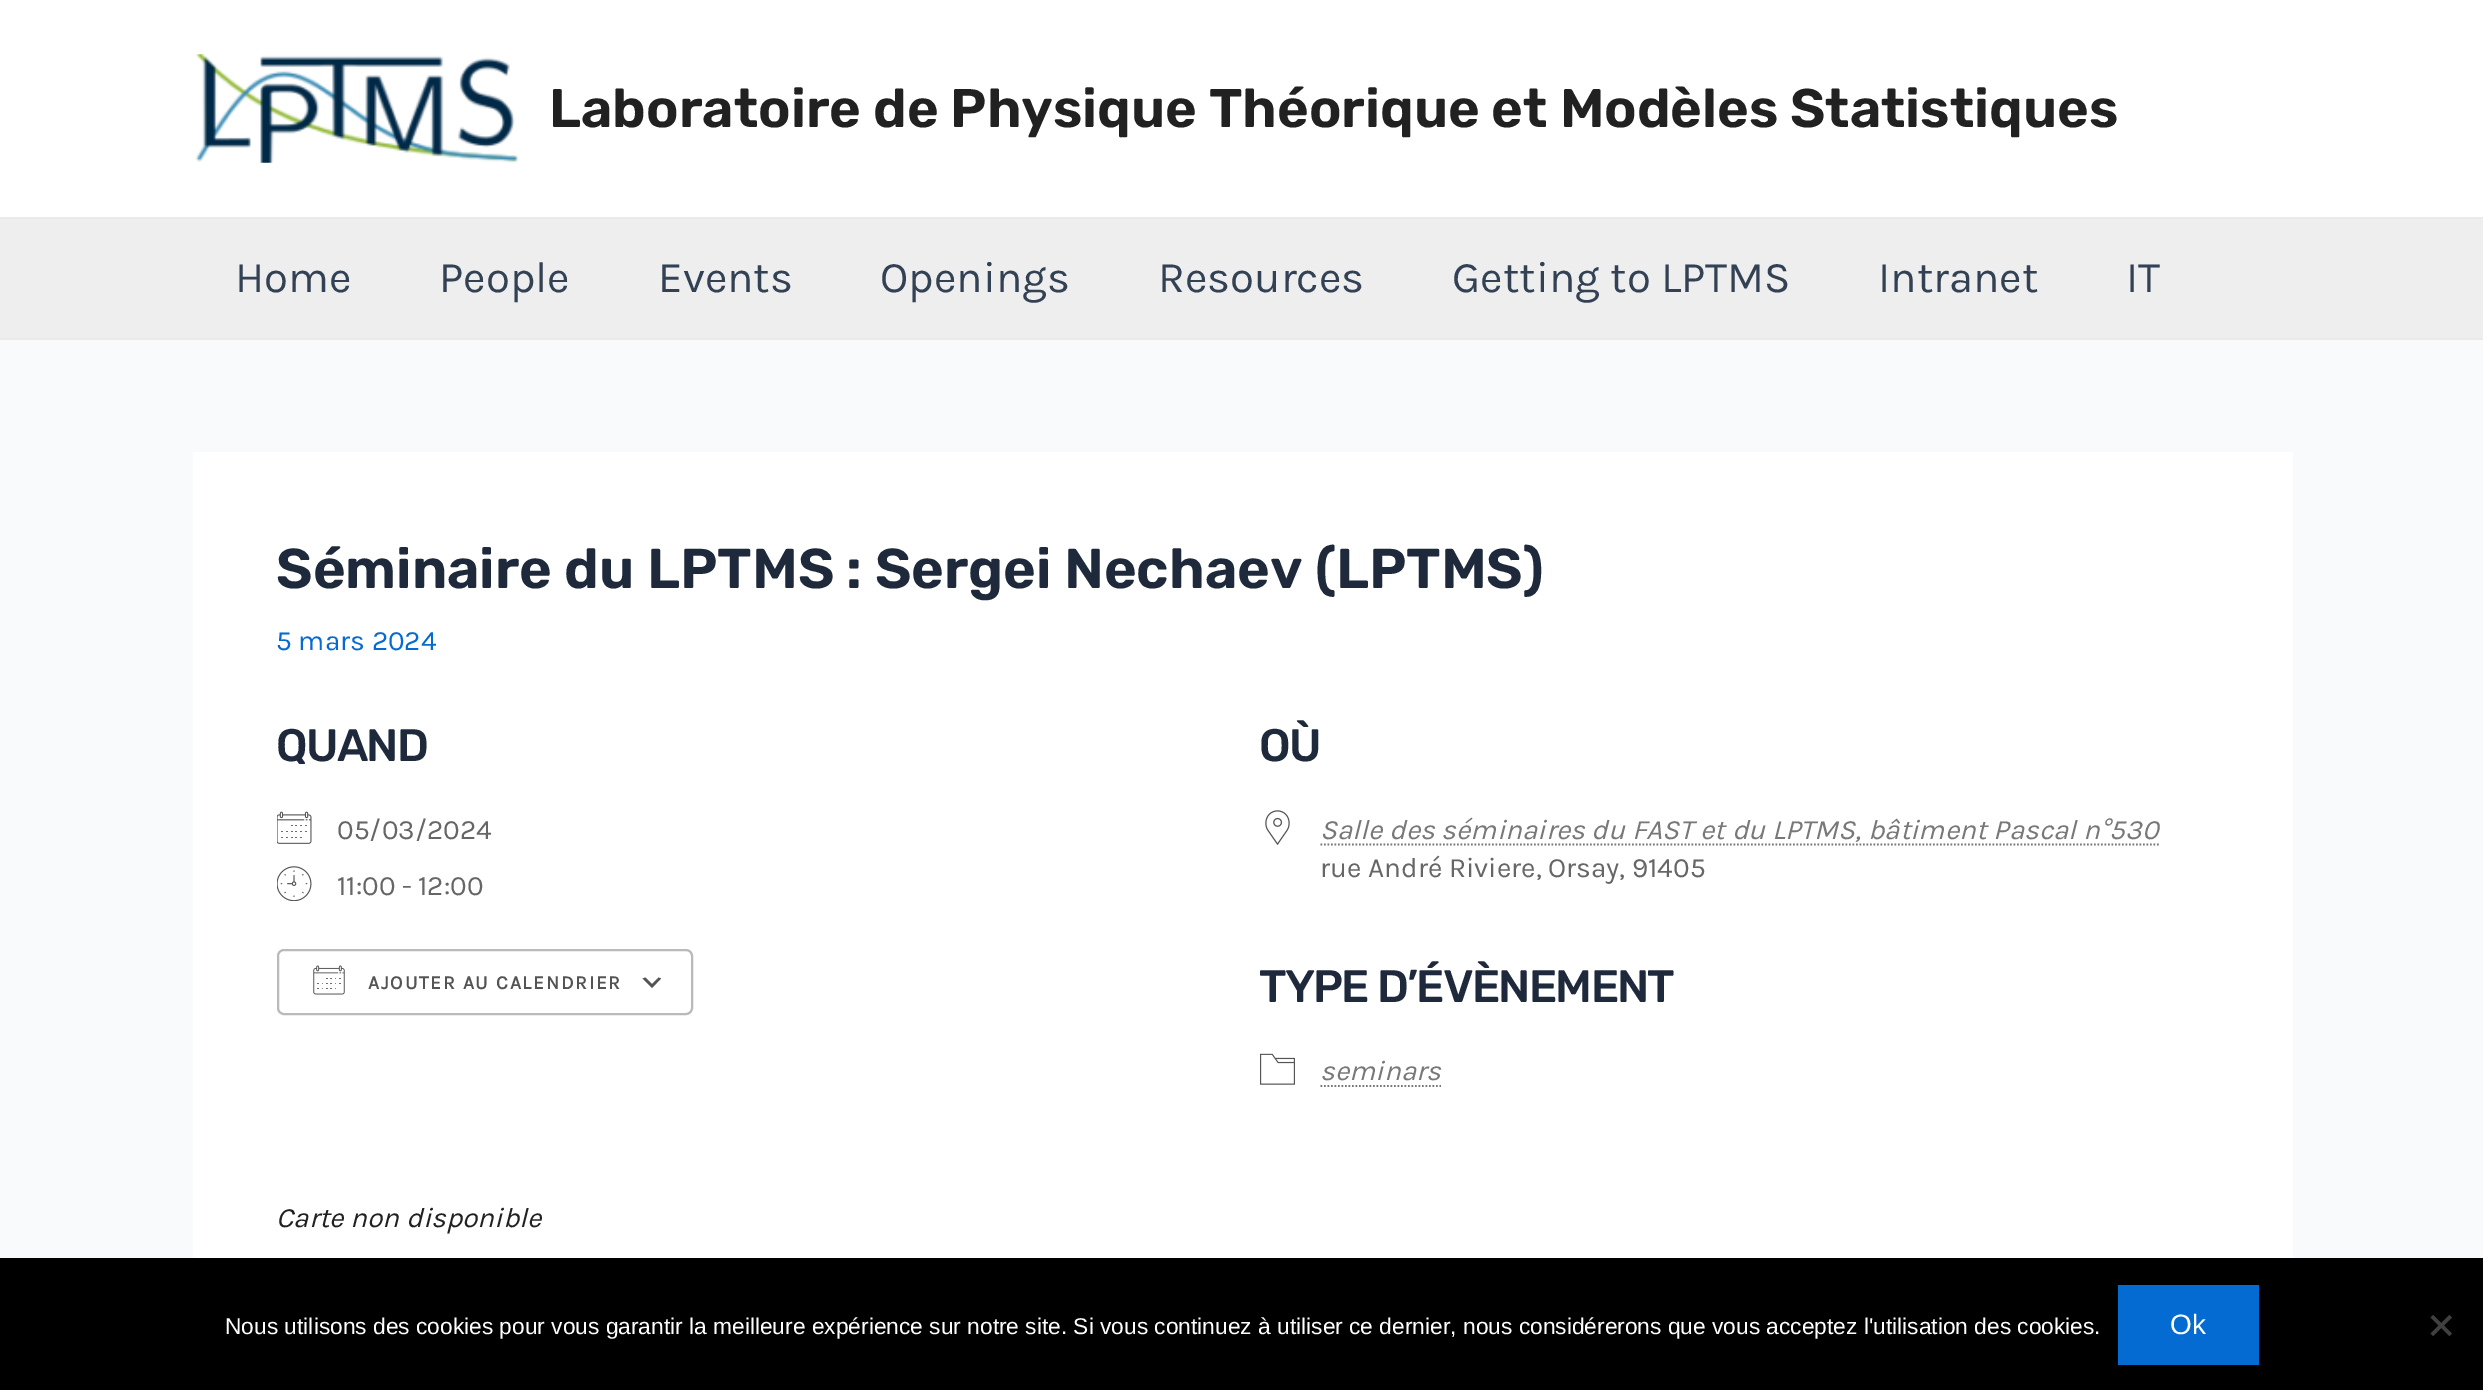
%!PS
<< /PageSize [2483 1390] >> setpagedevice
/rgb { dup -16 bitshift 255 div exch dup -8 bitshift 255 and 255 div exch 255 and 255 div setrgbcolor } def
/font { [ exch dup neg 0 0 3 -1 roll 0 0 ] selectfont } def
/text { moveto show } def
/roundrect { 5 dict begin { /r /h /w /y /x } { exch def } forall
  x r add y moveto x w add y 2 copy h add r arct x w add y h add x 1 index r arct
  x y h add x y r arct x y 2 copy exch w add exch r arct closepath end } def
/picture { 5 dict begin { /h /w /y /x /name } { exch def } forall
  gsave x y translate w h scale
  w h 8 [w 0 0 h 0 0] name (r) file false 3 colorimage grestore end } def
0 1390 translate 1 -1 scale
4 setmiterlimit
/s1 { /Rubik-SemiBold 54.25 font 16#212121 rgb } def
/s2 { /Karla-Regular 43.75 font 16#334155 rgb } def
/s3 { /Rubik-SemiBold 56 font 16#1E293B rgb } def
/s4 { /Karla-Regular 28 font 16#046BD2 rgb } def
/s5 { /Karla-Regular 28 font 16#666666 rgb } def
/s6 { /Karla-Italic 28 font 16#787878 rgb } def
/s7 { /Karla-Italic 28 font 16#212121 rgb } def
/s8 { /LiberationSans-Regular 22.75 font 16#FFFFFF rgb } def
/s9 { /LiberationSans-Regular 28 font 16#FFFFFF rgb } def
16#F9FAFB rgb
0 0 2483 1390 rectfill
16#FFFFFF rgb
0 0 2483 217 rectfill
16#EAEAEA rgb
0 217 2483 2 rectfill
(pic1.raw) 195 54 324 109 picture
s1
(Laboratoire de Physique Théorique et Modèles Statistiques) 549 127 text
16#EEEEEE rgb
0 219 2483 119 rectfill
16#EAEAEA rgb
0 338 2483 2 rectfill
s2
(Home) 235 292 text
(People) 439 292 text
(Events) 658 292 text
(Openings) 880 292 text
(Resources) 1158 292 text
(Getting to LPTMS) 1452 292 text
(Intranet) 1878 292 text
(IT) 2126 292 text
16#FFFFFF rgb
193 452 2100 806 rectfill
s3
(Séminaire du LPTMS : Sergei Nechaev \(LPTMS\)) 276 588 text
s4
(5 mars 2024) 276 650 text
/Rubik-Medium 45.5 font
16#1E293B rgb
276 761 moveto -1.75 0 (QUAND) ashow
(pic2.raw) 277 811 35 33 picture
s5
(05/03/2024) 337 839 text
(pic3.raw) 277 866 35 35 picture
(11:00 - 12:00) 337 895 text
16#555555 rgb
645.5 977.5 moveto 652 984 lineto 658.5 977.5 lineto 661 978.5 lineto 652 988 lineto 642.5 978.5 lineto closepath fill
16#BABABA rgb
2 setlinewidth
278 950 414 64 6 roundrect stroke
(pic4.raw) 313 965 32 30 picture
/Karla-Bold 19.25 font
16#545454 rgb
368 989 moveto 1.75 0 (AJOUTER AU CALENDRIER) ashow
/Rubik-Medium 45.5 font
16#1E293B rgb
1259 761 moveto -1.75 0 (OÙ) ashow
(pic5.raw) 1265 810 25 35 picture
s6
(Salle des séminaires du FAST et du LPTMS, bâtiment Pascal n°530) 1320 839 text
1.8 setlinewidth
[1.75 1.75] 0 setdash
1320.5 844.5 moveto 2159 844.5 lineto stroke
s5
(rue André Riviere, Orsay, 91405) 1320 877 text
/Rubik-Medium 45.5 font
16#1E293B rgb
1259 1002 moveto -1.75 0 (TYPE D’ÉVÈNEMENT) ashow
(pic6.raw) 1260 1053 35 32 picture
s6
(seminars) 1320 1080 text
1320.5 1086 moveto 1441 1086 lineto stroke
s7
(Carte non disponible) 276 1227 text
16#000000 rgb
0 1258 2483 132 rectfill
s8
(Nous utilisons des cookies pour vous garantir la meilleure expérience sur notre site. Si vous continuez à utiliser ce dernier, nous considérerons que vous acceptez l'utilisation des cookies.) 225 1334 text
16#046BD2 rgb
2118 1285 141 80 rectfill
s9
(Ok) 2170 1334 text
16#404040 rgb
2449.5 1315 moveto 2452 1317.5 lineto 2433 1336 lineto 2430.5 1333.5 lineto closepath fill
2430.5 1317.5 moveto 2433 1315 lineto 2452 1333.5 lineto 2449.5 1336 lineto closepath fill
showpage
